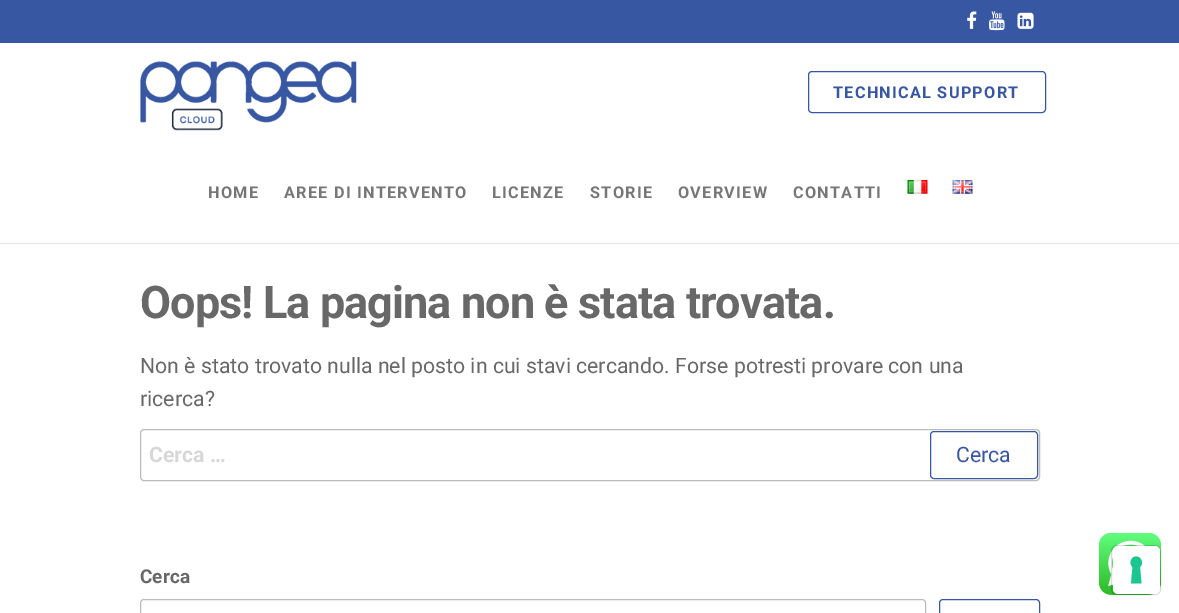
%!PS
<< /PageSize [1179 613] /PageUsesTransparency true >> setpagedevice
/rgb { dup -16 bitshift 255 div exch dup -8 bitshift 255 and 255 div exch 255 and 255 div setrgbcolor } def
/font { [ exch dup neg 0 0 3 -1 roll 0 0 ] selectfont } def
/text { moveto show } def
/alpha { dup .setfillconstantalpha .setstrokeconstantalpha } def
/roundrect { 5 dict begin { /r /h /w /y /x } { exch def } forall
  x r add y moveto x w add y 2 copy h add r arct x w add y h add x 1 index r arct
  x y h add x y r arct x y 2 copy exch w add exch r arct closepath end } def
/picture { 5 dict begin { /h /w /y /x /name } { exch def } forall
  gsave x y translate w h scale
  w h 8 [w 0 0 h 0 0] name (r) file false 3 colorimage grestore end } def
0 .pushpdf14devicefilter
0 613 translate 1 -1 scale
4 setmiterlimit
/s1 { /Roboto-Regular 21.25 font 16#686868 rgb } def
/s2 { /Roboto-Bold 21.25 font 16#D7D7D7 rgb } def
/s3 { /Roboto-Regular 21.25 font 16#3857A3 rgb } def
/s4 { /Roboto-Bold 19 font 16#686868 rgb } def
16#FFFFFF rgb
0 0 1179 613 rectfill
16#3857A3 rgb
0 0 1179 43 rectfill
(pic1.raw) 967 11 10 18 picture
(pic2.raw) 989 11 16 20 picture
(pic3.raw) 1017 12 17 17 picture
16#E2E2E2 rgb
0 243 1179 1 rectfill
(pic4.raw) 140 61 217 70 picture
16#3857A3 rgb
808.5 71.5 237 41 3.5 roundrect stroke
/Roboto-Bold 16.25 font
833 98 moveto 1.25 0 (TECHNICAL SUPPORT) ashow
16#777777 rgb
208 198 moveto 1.25 0 (HOME) ashow
284 198 moveto 1.25 0 (AREE DI INTERVENTO) ashow
492 198 moveto 1.25 0 (LICENZE) ashow
590 198 moveto 1.25 0 (STORIE) ashow
678 198 moveto 1.25 0 (OVERVIEW) ashow
793 198 moveto 1.25 0 (CONTATTI) ashow
(pic5.raw) 907 180 21 14 picture
(pic6.raw) 952 180 21 14 picture
/Roboto-Bold 45 font
16#686868 rgb
140 318 moveto -0.9 0 (Oops! La pagina non è stata trovata.) ashow
s1
(Non è stato trovato nulla nel posto in cui stavi cercando. Forse potresti provare con una) 140 373 text
(ricerca?) 140 406 text
16#BBBBBB rgb
140.5 429.5 899 51 3.5 roundrect stroke
s2
(Cerca …) 149 462 text
16#3857A3 rgb
930.5 431.5 107 47 3.5 roundrect stroke
s3
(Cerca) 956 462 text
s4
(Cerca) 140 583 text
16#BBBBBB rgb
140.5 599.5 785 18 3.5 roundrect stroke
16#3857A3 rgb
939.5 599.5 100 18 3.5 roundrect stroke
(pic7.raw) 1099 533 62 62 picture
0.15 alpha
16#000000 rgb
1111.5 545.5 49 49 5.5 roundrect stroke
1 alpha
16#FFFFFF rgb
1113 546 47 48 5 roundrect fill
16#1CC691 rgb
1136 556.5 moveto 1141.5 556.5 1144 563.5 1140 567 curveto 1141.5 583.5 lineto 1131 583.5 lineto 1132.5 567 lineto 1128.5 563.5 1131 556.5 1136 556.5 curveto closepath eofill
.poppdf14devicefilter showpage
